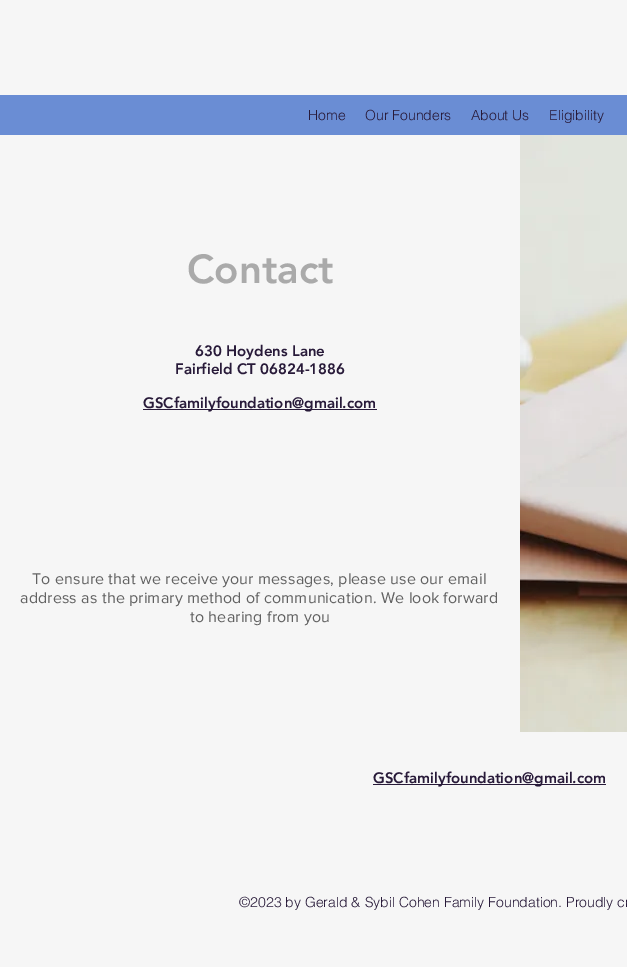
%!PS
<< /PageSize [627 967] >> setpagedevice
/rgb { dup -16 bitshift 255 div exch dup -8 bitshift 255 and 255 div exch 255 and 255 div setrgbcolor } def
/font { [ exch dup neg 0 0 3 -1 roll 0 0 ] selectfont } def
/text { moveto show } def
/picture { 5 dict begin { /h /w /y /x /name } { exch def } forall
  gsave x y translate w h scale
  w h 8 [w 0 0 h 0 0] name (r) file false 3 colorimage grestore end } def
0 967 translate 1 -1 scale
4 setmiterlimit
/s1 { /helvetica-Light 14 font 16#281A39 rgb } def
/s2 { /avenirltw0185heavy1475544-Black 40 font 16#AAAAAA rgb } def
/s3 { /avenirltw0185heavy1475544-Black 15 font 16#281A39 rgb } def
16#F6F6F6 rgb
0 0 627 967 rectfill
16#6A8DD4 rgb
0 95 627 40 rectfill
s1
(Home) 308 120 text
(Our Founders) 365 120 text
(About Us) 471 120 text
(Eligibility) 549 120 text
s2
(Contact) 187 283 text
(pic1.raw) 520 135 107 597 picture
s3
(630 Hoydens Lane) 195 356 text
(Fairfield CT 06824-1886) 175 374 text
143 409 234 1 rectfill
(GSCfamilyfoundation@gmail.com) 143 408 text
/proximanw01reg-Regular 16 font
16#626262 rgb
32 584 moveto 0.15 0 (To ensure that we receive your messages, please use our email) ashow
20 603 moveto 0.15 0 (address as the primary method of communication. We look forward) ashow
190 622 moveto 0.15 0 (to hearing from you) ashow
16#281A39 rgb
373 784 233 1 rectfill
s3
(GSCfamilyfoundation@gmail.com) 373 783 text
s1
(©2023 by Gerald & Sybil Cohen Family Foundation. Proudly cr) 239 907 text
showpage
